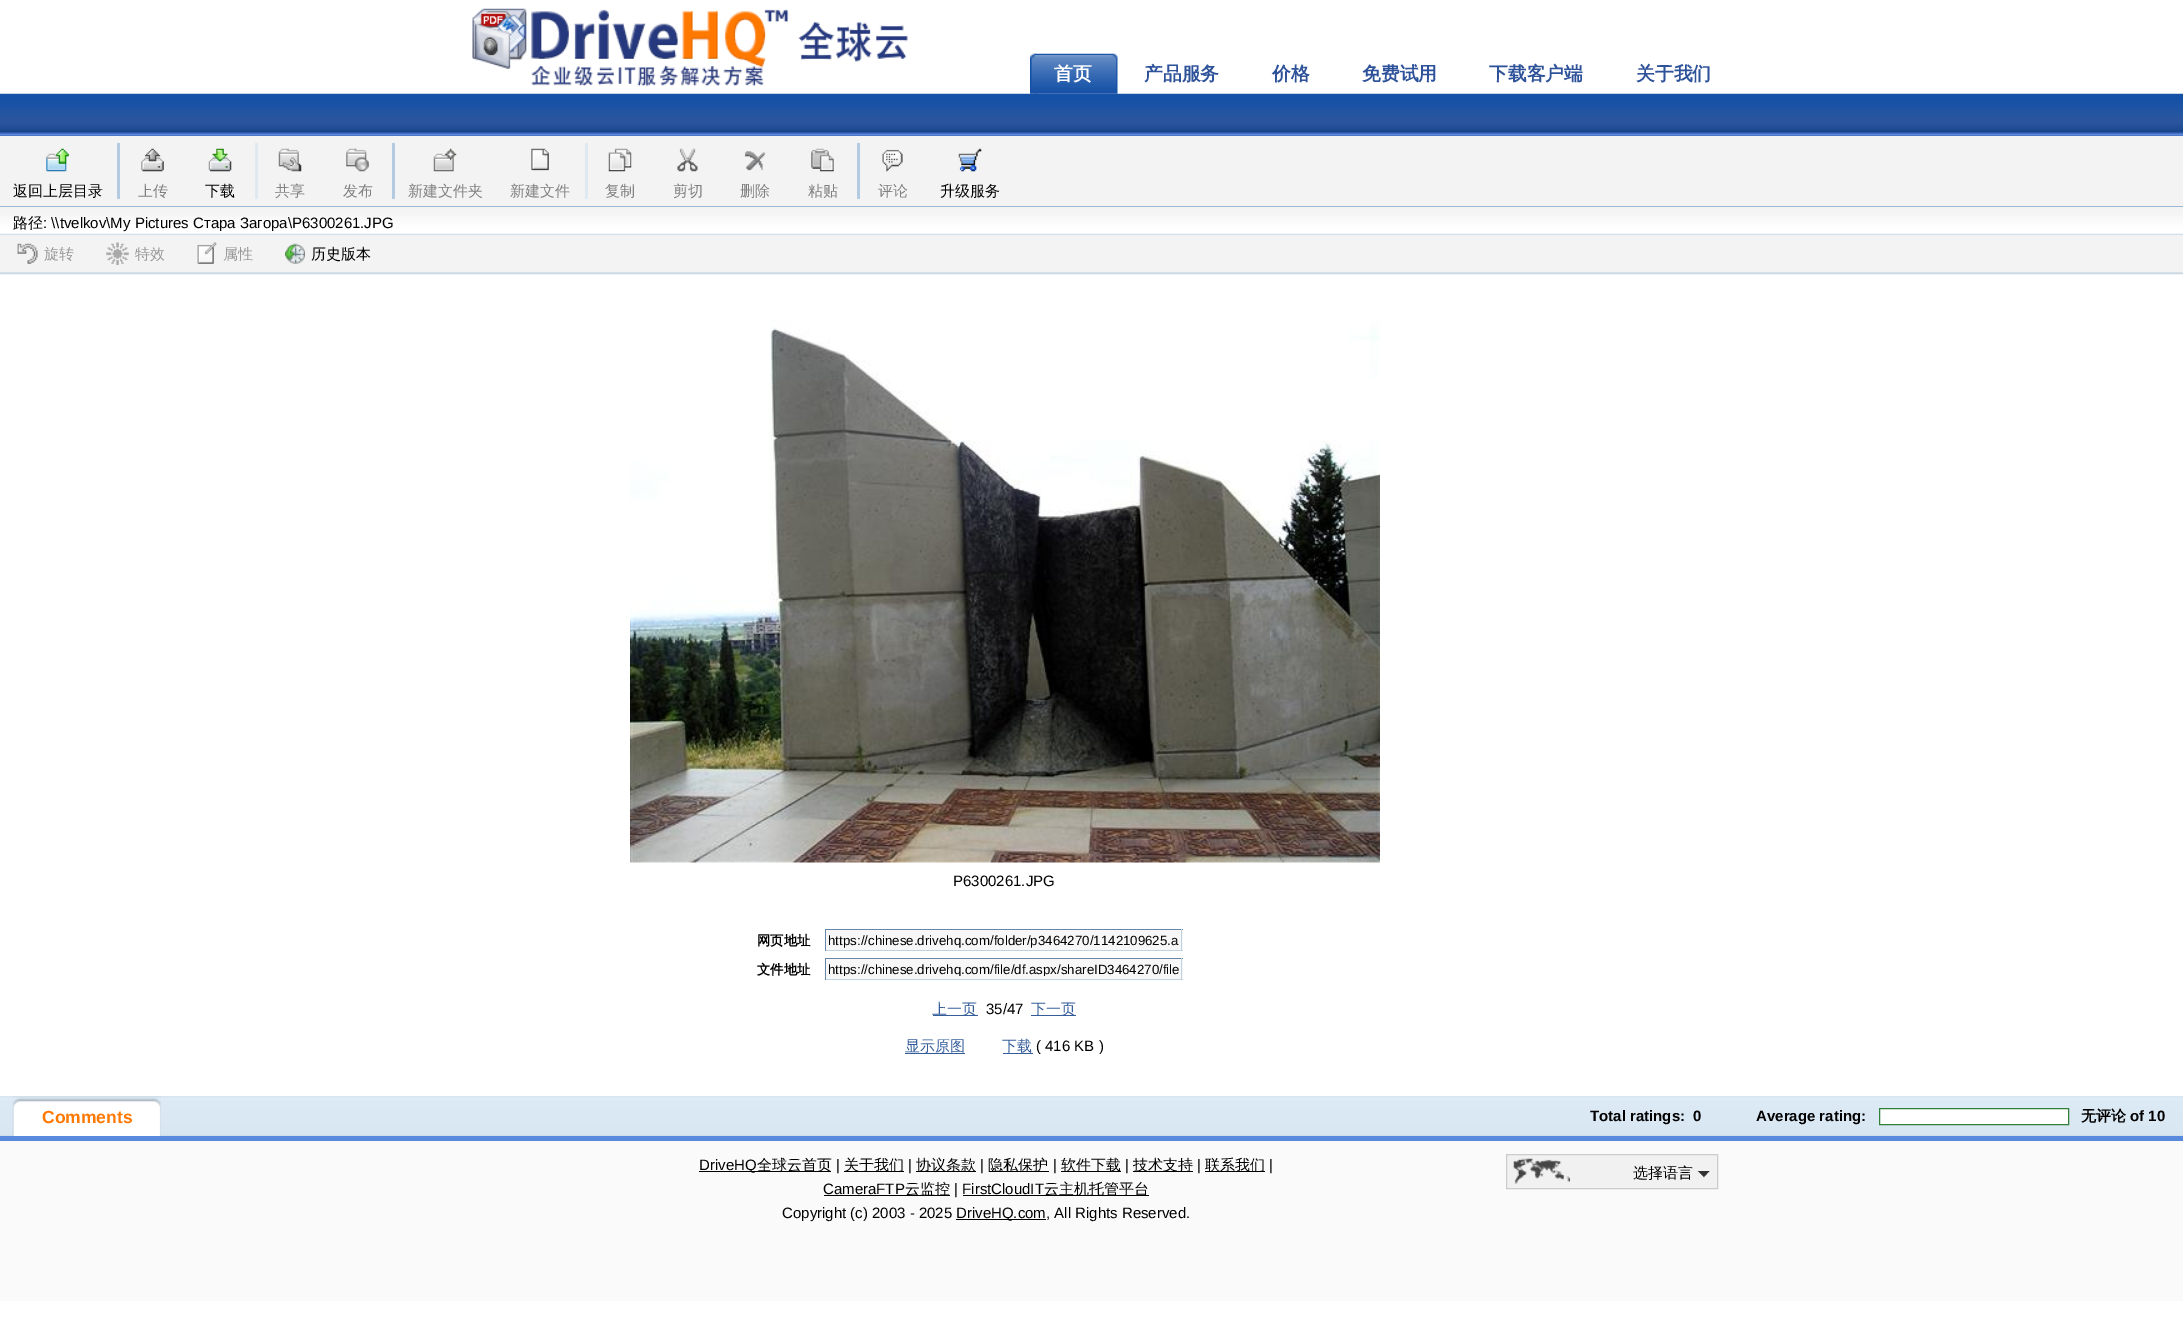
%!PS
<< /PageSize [2183 1333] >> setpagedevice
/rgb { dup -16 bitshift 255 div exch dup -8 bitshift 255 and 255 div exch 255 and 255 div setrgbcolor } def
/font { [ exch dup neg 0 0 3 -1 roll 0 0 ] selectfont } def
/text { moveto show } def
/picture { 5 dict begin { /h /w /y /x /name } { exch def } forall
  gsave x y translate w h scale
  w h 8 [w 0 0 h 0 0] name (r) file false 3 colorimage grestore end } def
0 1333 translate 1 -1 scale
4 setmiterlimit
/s1 { /WenQuanYiZenHei-Bold 18.75 font 16#FFFFFF rgb } def
/s2 { /WenQuanYiZenHei-Bold 18.75 font 16#2E5299 rgb } def
/s3 { /WenQuanYiZenHei-Medium 15 font 16#010000 rgb } def
/s4 { /WenQuanYiZenHei-Medium 15 font 16#808080 rgb } def
/s5 { /LiberationSans-Regular 15 font 16#010000 rgb } def
/s6 { /WenQuanYiZenHei-Medium 15 font 16#999999 rgb } def
/s7 { /WenQuanYiZenHei-Bold 13.3 font 16#010000 rgb } def
/s8 { /LiberationSans-Regular 13.3 font 16#010000 rgb } def
/s9 { /WenQuanYiZenHei-Medium 15 font 16#345D9A rgb } def
/s10 { /LiberationSans-Bold 17.5 font 16#FF7800 rgb } def
/s11 { /LiberationSans-Bold 15 font 16#010000 rgb } def
/s12 { /WenQuanYiZenHei-Bold 15 font 16#010000 rgb } def
16#FFFFFF rgb
0 0 2183 1333 rectfill
(pic1.raw) 0 93 2183 43 picture
(pic2.raw) 472 8 436 79 picture
(pic3.raw) 1030 53 7 41 picture
(pic4.raw) 1035 53 83 41 picture
s1
(首页) 1054 80 text
s2
(产品服务) 1144 80 text
(价格) 1272 80 text
(免费试用) 1362 80 text
(下载客户端) 1489 80 text
(关于我们) 1636 80 text
16#F3F3F3 rgb
0 136 2183 72 rectfill
16#9BB9D7 rgb
0 206 2183 1 rectfill
(pic5.raw) 46 148 23 24 picture
s3
(返回上层目录) 13 196 text
16#B4CAE1 rgb
117 143 3 56 rectfill
(pic6.raw) 141 148 23 24 picture
s4
(上传) 138 196 text
(pic7.raw) 208 148 24 24 picture
s3
(下载) 205 196 text
16#DFE9F2 rgb
255 143 3 56 rectfill
(pic8.raw) 278 148 24 24 picture
s4
(共享) 275 196 text
(pic9.raw) 346 148 23 24 picture
(发布) 343 196 text
16#B4CAE1 rgb
392 143 3 56 rectfill
(pic10.raw) 433 148 24 24 picture
s4
(新建文件夹) 408 196 text
(pic11.raw) 531 148 18 23 picture
(新建文件) 510 196 text
16#DFE9F2 rgb
585 143 3 56 rectfill
(pic12.raw) 608 148 24 24 picture
s4
(复制) 605 196 text
(pic13.raw) 677 148 21 24 picture
(剪切) 673 196 text
(pic14.raw) 744 151 22 20 picture
(删除) 740 196 text
(pic15.raw) 811 148 23 24 picture
(粘贴) 808 196 text
16#B4CAE1 rgb
857 143 3 56 rectfill
(pic16.raw) 882 149 21 23 picture
s4
(评论) 878 196 text
(pic17.raw) 958 148 24 24 picture
s3
(升级服务) 940 196 text
(pic18.raw) 0 208 2183 67 picture
(路径) 13 228 text
s5
(: \\\\tvelkov\\My Pictures Стара Загора\\P6300261.JPG) 43 228 text
(pic19.raw) 17 243 21 21 picture
s6
(旋转) 44 259 text
(pic20.raw) 106 242 23 23 picture
(特效) 135 259 text
(pic21.raw) 197 242 20 22 picture
(属性) 223 259 text
(pic22.raw) 285 243 20 21 picture
s3
(历史版本) 311 259 text
(pic23.raw) 630 320 750 543 picture
s5
(P6300261.JPG) 953 886 text
s7
(网页地址) 757 945 text
16#F7F7F7 rgb
826 930 357 20 rectfill
16#6487AA rgb
825 929 358 1 rectfill
16#BED2E1 rgb
1181 929 1 22 rectfill
825 950 358 1 rectfill
16#6487AA rgb
825 929 1 22 rectfill
s8
(https://chinese.drivehq.com/folder/p3464270/1142109625.a) 828 945 text
s7
(文件地址) 757 974 text
16#F7F7F7 rgb
826 959 357 20 rectfill
16#6487AA rgb
825 958 358 1 rectfill
16#BED2E1 rgb
1181 958 1 22 rectfill
825 979 358 1 rectfill
16#6487AA rgb
825 958 1 22 rectfill
gsave
829 961 350 15 rectclip
s8
(https://chinese.drivehq.com/file/df.aspx/shareID3464270/file) 828 974 text
grestore
16#345D9A rgb
933 1015 45 1 rectfill
s9
(上一页) 932 1014 text
s5
(35/47) 986 1014 text
16#345D9A rgb
1031 1015 45 1 rectfill
s9
(下一页) 1031 1014 text
(显示原图) 905 1051 text
905 1053 60 1 rectfill
(下载) 1002 1051 text
1003 1053 30 1 rectfill
s5
(\( 416 KB \)) 1036 1051 text
(pic24.raw) 0 1096 2183 40 picture
(pic25.raw) 12 1096 149 40 picture
s10
(Comments) 42 1123 text
s11
(Total ratings:) 1590 1121 text
(0) 1693 1121 text
(Average rating:) 1756 1121 text
16#FFFFFF rgb
1879.5 1108.5 moveto 2068.5 1108.5 lineto 2068.5 1124.5 lineto 1879.5 1124.5 lineto closepath gsave fill grestore
16#308038 rgb
stroke
s12
(无评论) 2081 1121 text
s11
(of 10) 2130 1121 text
16#FAFAFA rgb
0 1141 2183 160 rectfill
16#5A8ADE rgb
0 1136 2183 5 rectfill
16#000000 rgb
699 1171 132 1 rectfill
s5
(DriveHQ) 699 1170 text
s3
(全球云首页) 757 1170 text
s5
(|) 836 1170 text
16#000000 rgb
844 1171 60 1 rectfill
s3
(关于我们) 844 1170 text
s5
(|) 908 1170 text
16#000000 rgb
916 1171 60 1 rectfill
s3
(协议条款) 916 1170 text
s5
(|) 980 1170 text
16#000000 rgb
989 1171 60 1 rectfill
s3
(隐私保护) 988 1170 text
s5
(|) 1053 1170 text
16#000000 rgb
1061 1171 60 1 rectfill
s3
(软件下载) 1061 1170 text
s5
(|) 1125 1170 text
16#000000 rgb
1133 1171 60 1 rectfill
s3
(技术支持) 1133 1170 text
s5
(|) 1197 1170 text
16#000000 rgb
1205 1171 60 1 rectfill
s3
(联系我们) 1205 1170 text
s5
(|) 1269 1170 text
(CameraFTP) 823 1194 text
16#000000 rgb
824 1195 126 1 rectfill
s3
(云监控) 905 1194 text
s5
(| FirstCloudIT) 954 1194 text
16#000000 rgb
963 1195 186 1 rectfill
s3
(云主机托管平台) 1044 1194 text
s5
(Copyright \(c\) 2003 - 2025) 782 1218 text
16#000000 rgb
956 1219 90 1 rectfill
s5
(DriveHQ.com, All Rights Reserved.) 956 1218 text
16#F1F1F1 rgb
1506.5 1154.5 moveto 1717.5 1154.5 lineto 1717.5 1188.5 lineto 1506.5 1188.5 lineto closepath gsave fill grestore
16#CCCCCC rgb
stroke
(pic26.raw) 1513 1158 57 26 picture
s3
(选择语言) 1633 1178 text
16#333333 rgb
1697.5 1171 moveto 1710 1171 lineto 1704 1177.5 lineto closepath fill
16#F1F1F1 rgb
1710 1171 moveto 1710 1177.5 lineto 1704 1177.5 lineto closepath 1697.5 1177.5 moveto 1697.5 1171 lineto 1704 1177.5 lineto closepath fill
showpage
